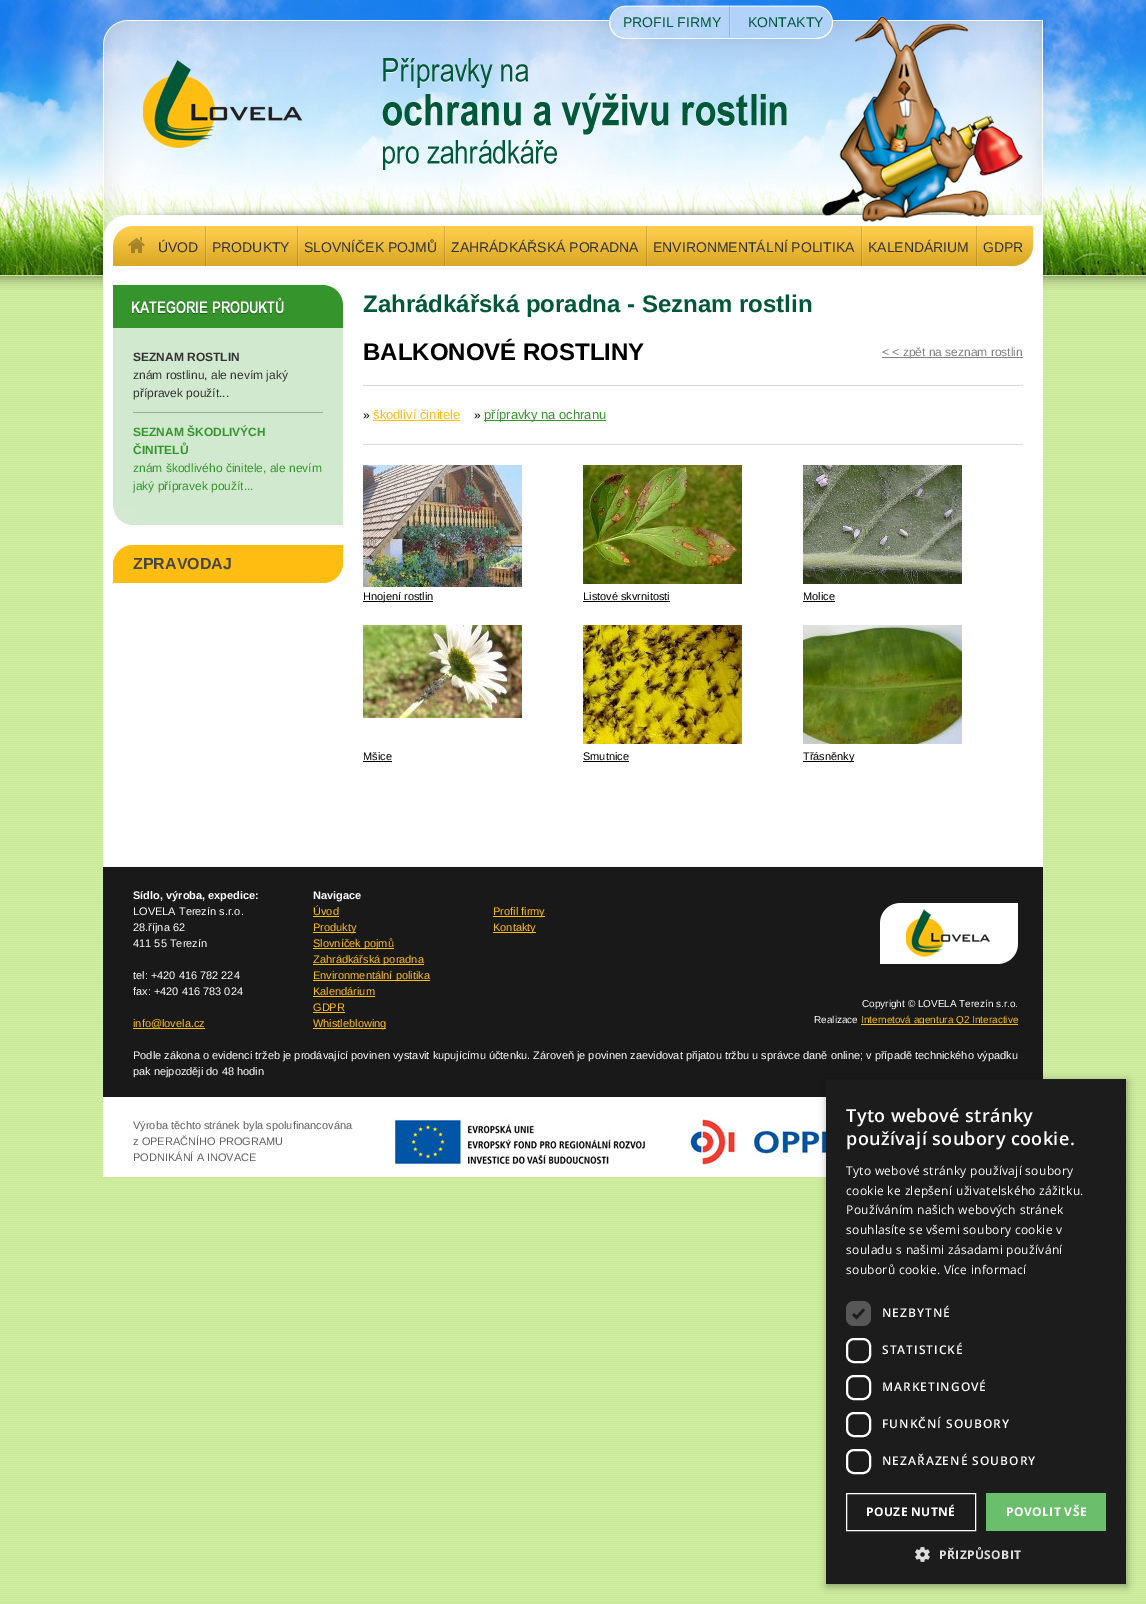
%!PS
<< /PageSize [1146 1604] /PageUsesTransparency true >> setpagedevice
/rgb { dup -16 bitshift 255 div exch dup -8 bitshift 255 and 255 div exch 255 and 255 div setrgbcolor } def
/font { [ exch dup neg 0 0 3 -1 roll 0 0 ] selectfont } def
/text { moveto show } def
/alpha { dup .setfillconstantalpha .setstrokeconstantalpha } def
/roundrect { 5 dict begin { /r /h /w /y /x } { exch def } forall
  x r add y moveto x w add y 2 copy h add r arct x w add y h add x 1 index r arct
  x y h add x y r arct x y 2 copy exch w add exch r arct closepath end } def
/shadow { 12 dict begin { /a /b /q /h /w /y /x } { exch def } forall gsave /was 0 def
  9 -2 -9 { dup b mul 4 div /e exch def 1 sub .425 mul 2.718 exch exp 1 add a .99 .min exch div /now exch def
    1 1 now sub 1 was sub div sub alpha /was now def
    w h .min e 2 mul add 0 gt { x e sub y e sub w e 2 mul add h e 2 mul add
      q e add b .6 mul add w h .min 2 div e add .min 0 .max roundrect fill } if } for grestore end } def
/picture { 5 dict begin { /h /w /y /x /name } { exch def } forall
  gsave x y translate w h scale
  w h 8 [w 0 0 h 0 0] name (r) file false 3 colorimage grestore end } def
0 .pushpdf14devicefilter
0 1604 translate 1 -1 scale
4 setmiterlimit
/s1 { /LiberationSans-Regular 14 font 16#005838 rgb } def
/s2 { /LiberationSans-Regular 14 font 16#333333 rgb } def
/s3 { /LiberationSans-Bold 12 font 16#333333 rgb } def
/s4 { /LiberationSans-Regular 12 font 16#333333 rgb } def
/s5 { /LiberationSans-Bold 12 font 16#35942C rgb } def
/s6 { /LiberationSans-Regular 12 font 16#35942C rgb } def
/s7 { /LiberationSans-Bold 16 font 16#464646 rgb } def
/s8 { /LiberationSans-Bold 24 font 16#005838 rgb } def
/s9 { /LiberationSans-Bold 24 font 16#000000 rgb } def
/s10 { /LiberationSans-Regular 12 font 16#7F7F7F rgb } def
/s11 { /LiberationSans-Regular 12 font 16#000000 rgb } def
/s12 { /LiberationSans-Regular 13 font 16#FEBD11 rgb } def
/s13 { /LiberationSans-Regular 13 font 16#35942C rgb } def
/s14 { /LiberationSans-Regular 11 font 16#000000 rgb } def
/s15 { /LiberationSans-Bold 11 font 16#FFFFFF rgb } def
/s16 { /LiberationSans-Regular 11 font 16#FFFFFF rgb } def
/s17 { /LiberationSans-Regular 11 font 16#FEBD11 rgb } def
/s18 { /LiberationSans-Regular 10 font 16#FFFFFF rgb } def
/s19 { /LiberationSans-Regular 10 font 16#FEBD11 rgb } def
/s20 { /LiberationSans-Regular 11 font 16#5E5E5E rgb } def
16#FFFFFF rgb
0 0 1146 1604 rectfill
(pic1.raw) 0 290 1146 1314 picture
(pic2.raw) 0 0 1146 290 picture
(pic3.raw) 103 5 940 270 picture
s1
(PROFIL FIRMY) 623 27 text
(KONTAKTY) 748 27 text
(pic4.raw) 143 60 160 88 picture
(pic5.raw) 113 226 920 40 picture
(pic6.raw) 128 237 17 16 picture
s2
(ÚVOD) 158 252 text
(pic7.raw) 205 226 2 40 picture
(PRODUKTY) 212 252 text
(pic7.raw) 297 226 2 40 picture
(SLOVNÍČEK POJMŮ) 304 252 text
(pic7.raw) 444 226 2 40 picture
(ZAHRÁDKÁŘSKÁ PORADNA) 451 252 text
(pic7.raw) 646 226 2 40 picture
(ENVIRONMENTÁLNÍ POLITIKA) 653 252 text
(pic7.raw) 861 226 2 40 picture
(KALENDÁRIUM) 868 252 text
(pic7.raw) 976 226 2 40 picture
(GDPR) 983 252 text
16#FFFFFF rgb
103 275 940 592 rectfill
(pic8.raw) 113 285 230 43 picture
16#D1E9CF rgb
113 328 230 197 rectfill
(pic9.raw) 113 506 24 19 picture
16#9DAE9C rgb
133 412 190 1 rectfill
s3
(SEZNAM ROSTLIN) 133 361 text
s4
(znám rostlinu, ale nevím jaký) 133 379 text
(přípravek použít...) 133 397 text
s5
(SEZNAM ŠKODLIVÝCH) 133 436 text
(ČINITELŮ) 133 454 text
s6
(znám škodlivého činitele, ale nevím) 133 472 text
(jaký přípravek použít...) 133 490 text
16#FFBD11 rgb
133 545 moveto 343 545 lineto 343 563 lineto 343 574 334 583 323 583 curveto 113 583 lineto 113 565 lineto 113 554 122 545 133 545 curveto closepath fill
s7
(ZPRAVODAJ) 133 569 text
s8
(Zahrádkářská poradna - Seznam rostlin) 363 312 text
16#D8D8D8 rgb
363 385 660 1 rectfill
s9
(BALKONOVÉ ROSTLINY) 363 360 text
16#7F7F7F rgb
882 357 141 1 rectfill
s10
(< < zpět na seznam rostlin) 882 356 text
16#D8D8D8 rgb
363 444 660 1 rectfill
s11
(») 363 419 text
s12
(škodliví činitele) 373 419 text
373 420 87 1 rectfill
s11
(») 474 419 text
16#35942C rgb
484 420 122 1 rectfill
s13
(přípravky na ochranu) 484 419 text
(pic10.raw) 363 465 159 122 picture
16#000000 rgb
363 601 70 1 rectfill
s14
(Hnojení rostlin) 363 600 text
(pic11.raw) 583 465 159 119 picture
(Listové skvrnitosti) 583 600 text
583 601 87 1 rectfill
(pic12.raw) 803 465 159 119 picture
(Molice) 803 600 text
803 601 32 1 rectfill
(pic13.raw) 363 625 159 93 picture
(Mšice) 363 760 text
363 761 29 1 rectfill
(pic14.raw) 583 625 159 119 picture
(Smutnice) 583 760 text
583 761 46 1 rectfill
(pic15.raw) 803 625 159 119 picture
803 761 51 1 rectfill
(Třásněnky) 803 760 text
16#191919 rgb
103 867 940 230 rectfill
s15
(Sídlo, výroba, expedice:) 133 899 text
s16
(LOVELA Terezín s.r.o.) 133 915 text
(28.října 62) 133 931 text
(411 55 Terezín) 133 947 text
(tel: +420 416 782 224) 133 979 text
(fax: +420 416 783 024) 133 995 text
16#FEBD11 rgb
133 1028 72 1 rectfill
(info@lovela.cz) 133 1027 text
s15
(Navigace) 313 899 text
s17
(Úvod) 313 915 text
313 916 26 1 rectfill
313 932 43 1 rectfill
(Produkty) 313 931 text
313 948 81 1 rectfill
(Slovníček pojmů) 313 947 text
313 964 111 1 rectfill
(Zahrádkářská poradna) 313 963 text
313 980 117 1 rectfill
(Environmentální politika) 313 979 text
(Kalendárium) 313 995 text
313 996 62 1 rectfill
(GDPR) 313 1011 text
313 1012 32 1 rectfill
313 1028 73 1 rectfill
(Whistleblowing) 313 1027 text
493 916 52 1 rectfill
(Profil firmy) 493 915 text
493 932 43 1 rectfill
(Kontakty) 493 931 text
(pic16.raw) 880 903 138 61 picture
s18
(Copyright © LOVELA Terezín s.r.o.) 862 1007 text
(Realizace) 814 1023 text
16#FEBD11 rgb
861 1024 157 1 rectfill
(Internetová agentura Q2 Interactive) 861 1023 text
s16
(Podle zákona o evidenci tržeb je prodávající povinen vystavit kupujícímu účtenku. Zároveň je povinen zaevidovat přijatou tržbu u správce daně online; v případě technického výpadku) 133 1059 text
(pak nejpozději do 48 hodin) 133 1075 text
(pic17.raw) 103 1097 723 80 picture
s20
(Výroba těchto stránek byla spolufinancována) 133 1129 text
(z OPERAČNÍHO PROGRAMU) 133 1145 text
(PODNIKÁNÍ A INOVACE) 133 1161 text
(pic18.raw) 392 1117 254 48 picture
(pic19.raw) 688 1117 138 48 picture
16#000000 rgb
827 1081 300 505 0 4 0.35 shadow
16#1C1C1C rgb
826 1079 300 505 rectfill
/OpenSans-SemiBold 18 font
16#FFFFFF rgb
846 1122 moveto 0.4 0 (Tyto webové stránky) ashow
846 1145 moveto 0.4 0 (používají soubory cookie.) ashow
/OpenSans-Regular 12 font
846 1175 moveto 0.3 0 (Tyto webové stránky používají soubory) ashow
846 1195 moveto 0.3 0 (cookie ke zlepšení uživatelského zážitku.) ashow
846 1214 moveto 0.3 0 (Používáním našich webových stránek) ashow
846 1234 moveto 0.3 0 (souhlasíte se všemi soubory cookie v) ashow
846 1254 moveto 0.3 0 (souladu s našimi zásadami používání) ashow
846 1274 moveto 0.3 0 (souborů cookie. Více informací) ashow
16#575757 rgb
846 1301 25 25 8 roundrect fill
16#1C1C1C rgb
2.6 setlinewidth
853 1314 moveto 856.5 1317.5 lineto 864 1309.5 lineto stroke
/OpenSans-SemiBold 12 font
16#FFFFFF rgb
882 1317 moveto 1 0 (NEZBYTNÉ) ashow
2 setlinewidth
847 1339 23 23 7 roundrect stroke
882 1354 moveto 1 0 (STATISTICKÉ) ashow
847 1376 23 23 7 roundrect stroke
882 1391 moveto 1 0 (MARKETINGOVÉ) ashow
847 1413 23 23 7 roundrect stroke
882 1428 moveto 1 0 (FUNKČNÍ SOUBORY) ashow
847 1450 23 23 7 roundrect stroke
882 1465 moveto 1 0 (NEZAŘAZENÉ SOUBORY) ashow
1 setlinewidth
846.5 1493.5 129 37 rectstroke
/OpenSans-Bold 12 font
866 1516 moveto 0.4 0 (POUZE NUTNÉ) ashow
16#6BBE6B rgb
986 1493 120 38 rectfill
16#FFFFFF rgb
1006 1516 moveto 0.4 0 (POVOLIT VŠE) ashow
(pic20.raw) 915 1547 15 15 picture
16#DDDDDD rgb
939 1559 moveto 0.4 0 (PŘIZPŮSOBIT) ashow
.poppdf14devicefilter showpage
